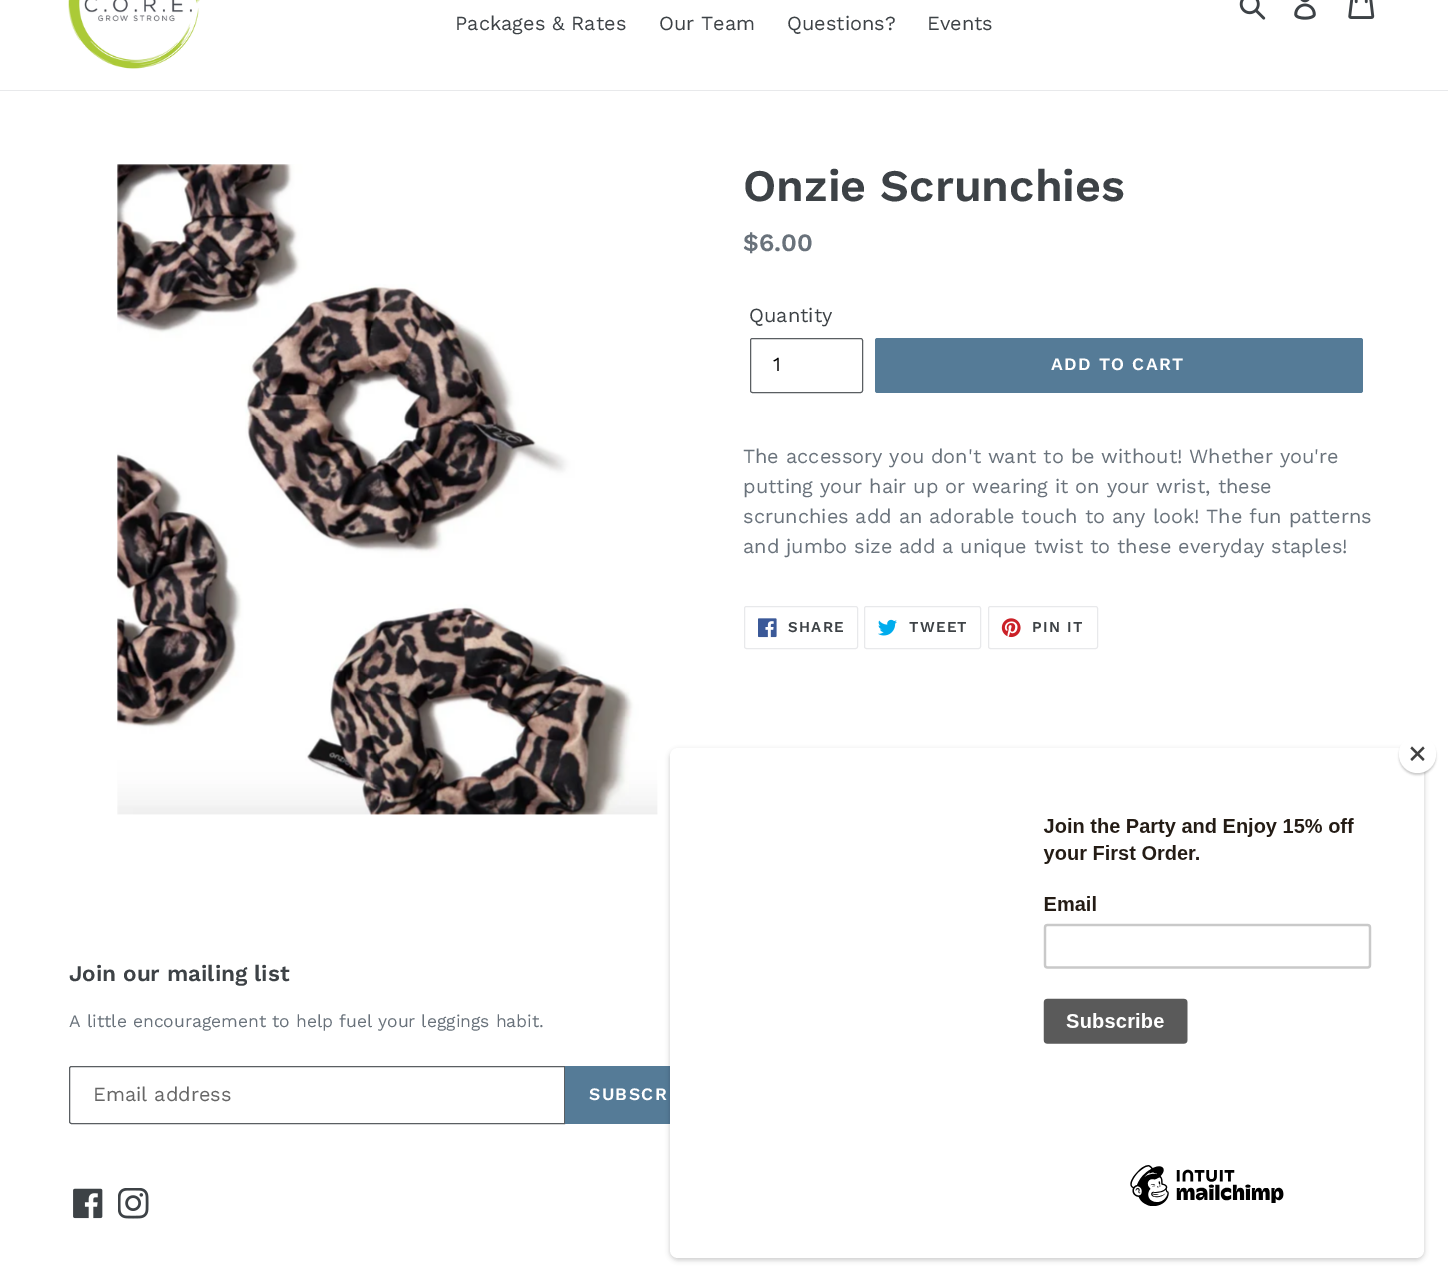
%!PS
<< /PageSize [1448 1282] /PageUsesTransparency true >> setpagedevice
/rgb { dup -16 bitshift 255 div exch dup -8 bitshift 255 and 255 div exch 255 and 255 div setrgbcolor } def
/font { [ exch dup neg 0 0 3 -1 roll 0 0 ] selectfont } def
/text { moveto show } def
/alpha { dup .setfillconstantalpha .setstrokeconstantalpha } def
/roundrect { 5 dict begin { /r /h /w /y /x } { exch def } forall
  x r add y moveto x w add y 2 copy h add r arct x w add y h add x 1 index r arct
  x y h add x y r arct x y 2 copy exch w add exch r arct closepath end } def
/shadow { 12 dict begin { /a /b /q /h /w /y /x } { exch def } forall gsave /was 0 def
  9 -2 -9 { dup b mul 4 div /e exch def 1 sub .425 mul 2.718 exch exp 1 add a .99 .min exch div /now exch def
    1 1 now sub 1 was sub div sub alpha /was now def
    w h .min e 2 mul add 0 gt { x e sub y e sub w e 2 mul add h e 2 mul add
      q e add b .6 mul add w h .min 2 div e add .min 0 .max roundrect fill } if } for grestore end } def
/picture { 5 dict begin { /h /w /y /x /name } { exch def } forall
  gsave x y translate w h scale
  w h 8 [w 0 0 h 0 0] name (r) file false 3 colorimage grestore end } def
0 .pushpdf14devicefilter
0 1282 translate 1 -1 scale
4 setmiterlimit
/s1 { /WorkSans-Regular 20 font 16#3D4246 rgb } def
/s2 { /WorkSans-SemiBold 45 font 16#3D4246 rgb } def
/s3 { /WorkSans-SemiBold 25 font 16#69727B rgb } def
/s4 { /WorkSans-Regular 20 font 16#000000 rgb } def
/s5 { /WorkSans-Regular 20 font 16#69727B rgb } def
/s6 { /WorkSans-SemiBold 22.5 font 16#3D4246 rgb } def
/s7 { /WorkSans-Regular 17.5 font 16#69727B rgb } def
/s8 { /WorkSans-Regular 20 font 16#666666 rgb } def
16#FFFFFF rgb
0 0 1448 1282 rectfill
16#E8E9EB rgb
0 90 1448 1 rectfill
(pic1.raw) 68 0 132 69 picture
(pic2.raw) 1239 0 27 20 picture
(pic3.raw) 1294 0 22 20 picture
(pic4.raw) 1348 0 27 19 picture
s1
(Packages & Rates) 455 30 text
(Our Team) 659 30 text
(Questions?) 787 30 text
(Events) 927 30 text
(pic5.raw) 117 164 541 651 picture
s2
(Onzie Scrunchies) 743 201 text
s3
($6.00) 743 251 text
s1
(Quantity) 749 322 text
16#5A5E62 rgb
750.5 338.5 112 54 2 roundrect stroke
s4
(1) 773 371 text
16#557B97 rgb
875 338 488 55 2.5 roundrect fill
/WorkSans-SemiBold 17.5 font
16#FFFFFF rgb
1051 370 moveto 1.4 0 (ADD TO CART) ashow
s5
(The accessory you don't want to be without! Whether you're) 743 463 text
(putting your hair up or wearing it on your wrist, these) 743 493 text
(scrunchies add an adorable touch to any look! The fun patterns) 743 523 text
(and jumbo size add a unique twist to these everyday staples!) 743 553 text
16#E8E9EB rgb
744.5 606.5 113 42 2 roundrect stroke
(pic6.raw) 758 618 19 20 picture
/WorkSans-SemiBold 15 font
16#3D4246 rgb
788 632 moveto 1.25 0 (SHARE) ashow
16#E8E9EB rgb
864.5 606.5 116 42 2 roundrect stroke
(pic7.raw) 878 619 19 17 picture
16#3D4246 rgb
909 632 moveto 1.25 0 (TWEET) ashow
16#E8E9EB rgb
988.5 606.5 109 42 2 roundrect stroke
(pic8.raw) 1001 618 20 20 picture
16#3D4246 rgb
1032 632 moveto 1.25 0 (PIN IT) ashow
s6
(Join our mailing list) 69 981 text
s7
(A little encouragement to help fuel your leggings habit.) 69 1027 text
16#5A5E62 rgb
71.5 1066.5 moveto 564.5 1066.5 lineto 564.5 1123.5 lineto 71.5 1123.5 lineto 70.5 1123.5 69.5 1122.5 69.5 1121.5 curveto 69.5 1068.5 lineto 69.5 1067.5 70.5 1066.5 71.5 1066.5 curveto closepath stroke
s8
(Email address) 93 1101 text
16#557B97 rgb
565 1066 105 58 rectfill
/WorkSans-SemiBold 17.5 font
16#FFFFFF rgb
589 1100 moveto 1.4 0 (SUBSCR) ashow
(pic9.raw) 73 1188 30 31 picture
(pic10.raw) 118 1188 31 31 picture
16#000000 rgb
670 750 754 510 8 2.5 0.2 shadow
16#FFFFFF rgb
670 748 754 510 8 roundrect fill
16#000000 rgb
1399 738 37 37 18.5 1 0.2 shadow
16#FFFFFF rgb
1399 735 37 38 18.5 roundrect fill
16#414141 rgb
1423 746.5 moveto 1424.5 748.5 lineto 1412 761 lineto 1410.5 759 lineto closepath fill
1410.5 748.5 moveto 1412 746.5 lineto 1424.5 759 lineto 1423 761 lineto closepath fill
(pic11.raw) 1043 818 329 388 picture
.poppdf14devicefilter showpage
